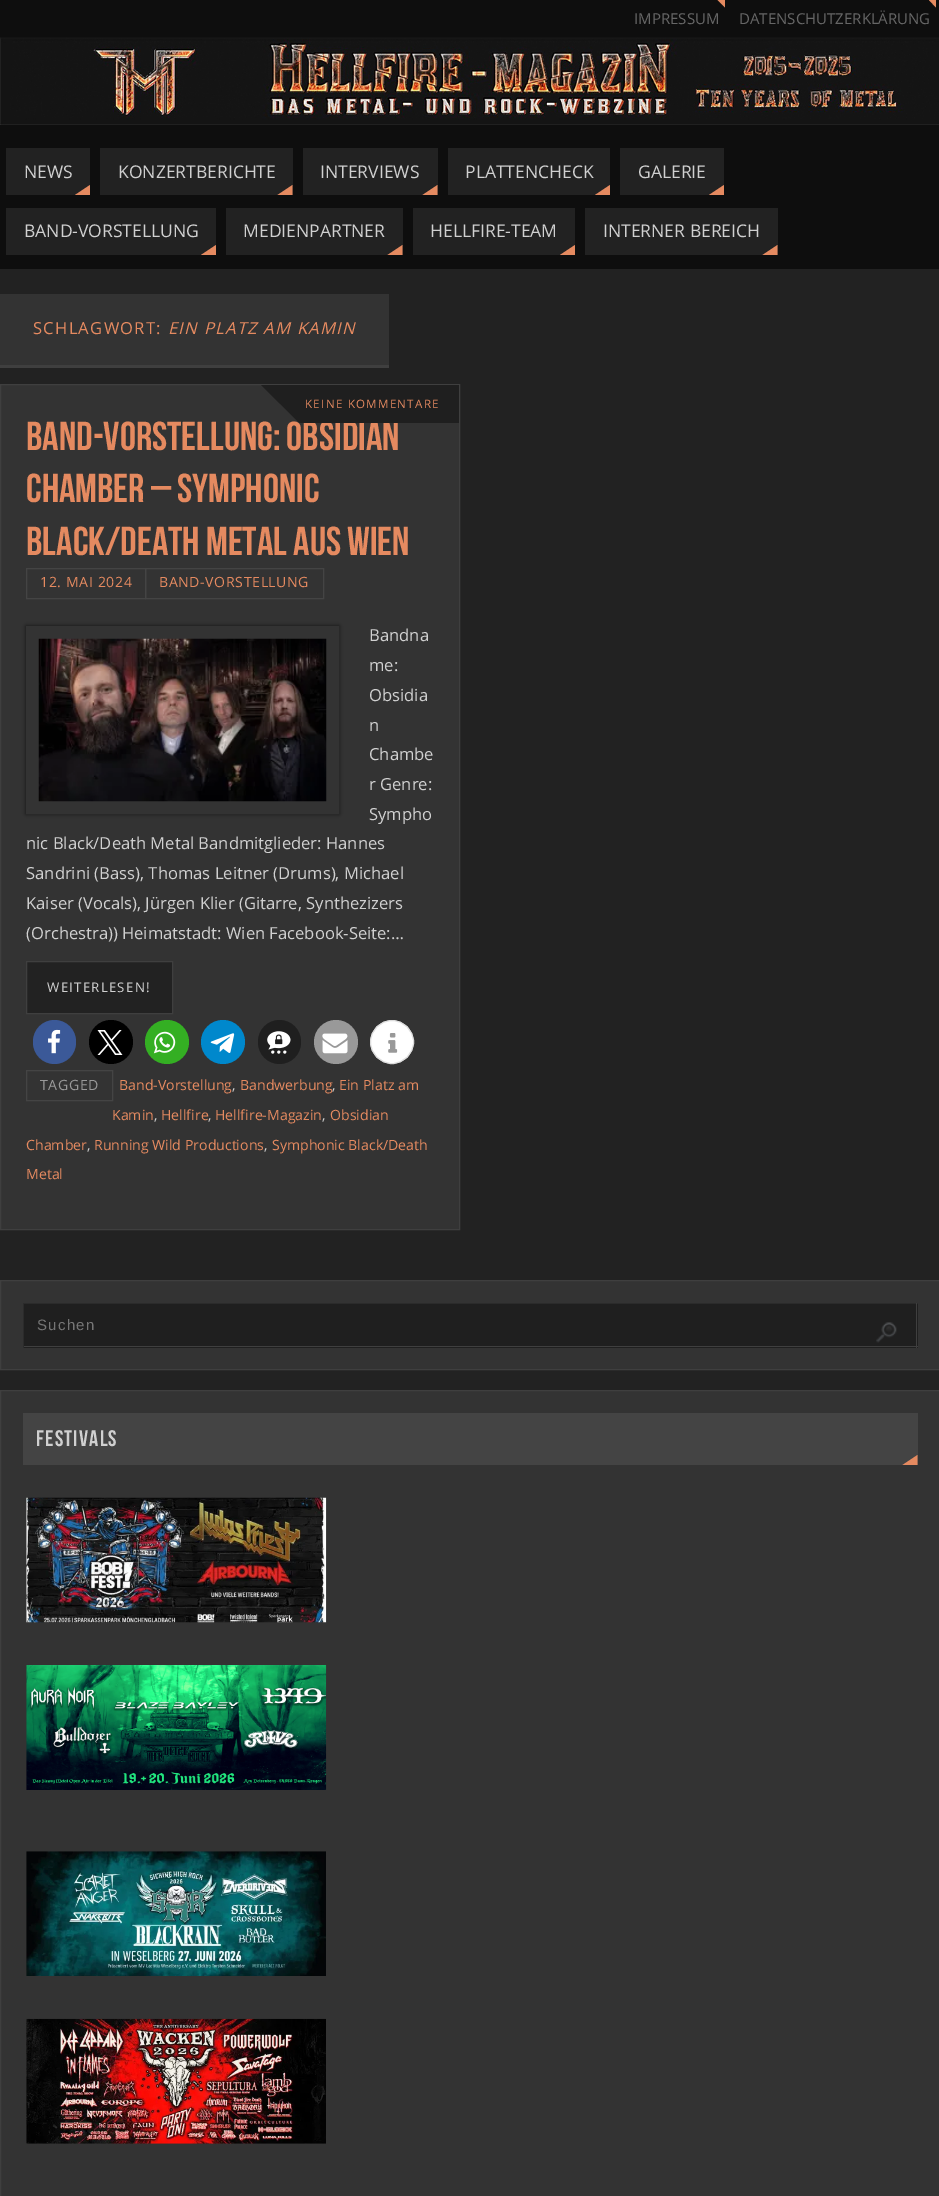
%!PS
<< /PageSize [939 2196] /PageUsesTransparency true >> setpagedevice
/rgb { dup -16 bitshift 255 div exch dup -8 bitshift 255 and 255 div exch 255 and 255 div setrgbcolor } def
/font { [ exch dup neg 0 0 3 -1 roll 0 0 ] selectfont } def
/text { moveto show } def
/alpha { dup .setfillconstantalpha .setstrokeconstantalpha } def
/circle { newpath 0 360 arc closepath } def
/roundrect { 5 dict begin { /r /h /w /y /x } { exch def } forall
  x r add y moveto x w add y 2 copy h add r arct x w add y h add x 1 index r arct
  x y h add x y r arct x y 2 copy exch w add exch r arct closepath end } def
/shadow { 12 dict begin { /a /b /q /h /w /y /x } { exch def } forall gsave /was 0 def
  9 -2 -9 { dup b mul 4 div /e exch def 1 sub .425 mul 2.718 exch exp 1 add a .99 .min exch div /now exch def
    1 1 now sub 1 was sub div sub alpha /was now def
    w h .min e 2 mul add 0 gt { x e sub y e sub w e 2 mul add h e 2 mul add
      q e add b .6 mul add w h .min 2 div e add .min 0 .max roundrect fill } if } for grestore end } def
/picture { 5 dict begin { /h /w /y /x /name } { exch def } forall
  gsave x y translate w h scale
  w h 8 [w 0 0 h 0 0] name (r) file false 3 colorimage grestore end } def
0 .pushpdf14devicefilter
0 2196 translate 1 -1 scale
4 setmiterlimit
/s1 { /OpenSans-Regular 15 font 16#666666 rgb } def
/s2 { /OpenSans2-Regular 15 font 16#666666 rgb } def
/s3 { /OpenSans-Regular 17.5 font 16#D0D0D0 rgb } def
/s4 { /BebasNeue-Regular 40.4 font 16#E58A60 rgb } def
/s5 { /OpenSans-Regular 16.6 font 16#D0D0D0 rgb } def
/s6 { /OpenSans2-Regular 16.6 font 16#D0D0D0 rgb } def
/s7 { /OpenSans-Regular 14.1 font 16#E58A60 rgb } def
/s8 { /OpenSans-Regular 14.1 font 16#D0D0D0 rgb } def
16#222222 rgb
0 0 939 2196 rectfill
16#0E0E0E rgb
0 0 939 269 rectfill
16#E58A60 rgb
717.5 0 moveto 725 0 lineto 725 7.5 lineto closepath fill
s1
(IMPRESSUM) 634 24 text
16#E58A60 rgb
929 0 moveto 936 0 lineto 936 7.5 lineto closepath fill
s1
(DATENSCHUTZERKL) 739 24 text
s2
(Ä) 878 24 text
s1
(RUNG) 888 24 text
(pic1.raw) 0 37 939 88 picture
16#222222 rgb
6 148 84 47 rectfill
s3
(NEWS) 24 178 text
16#E58A60 rgb
90 195 moveto 75 195 lineto 90 185 lineto closepath fill
16#222222 rgb
100 148 193 47 rectfill
s3
(KONZERTBERICHTE) 118 178 text
16#E58A60 rgb
292.5 195 moveto 277.5 195 lineto 292.5 185 lineto closepath fill
16#222222 rgb
303 148 135 47 rectfill
s3
(INTERVIEWS) 320 178 text
16#E58A60 rgb
437.5 195 moveto 422.5 195 lineto 437.5 185 lineto closepath fill
16#222222 rgb
448 148 162 47 rectfill
s3
(PLATTENCHECK) 465 178 text
16#E58A60 rgb
610 195 moveto 595 195 lineto 610 185 lineto closepath fill
16#222222 rgb
620 148 104 47 rectfill
s3
(GALERIE) 638 178 text
16#E58A60 rgb
724 195 moveto 709 195 lineto 724 185 lineto closepath fill
16#222222 rgb
6 208 210 47 rectfill
s3
(BAND-VORSTELLUNG) 24 237 text
16#E58A60 rgb
216 255 moveto 201 255 lineto 216 245 lineto closepath fill
16#222222 rgb
226 208 177 47 rectfill
s3
(MEDIENPARTNER) 243 237 text
16#E58A60 rgb
402.5 255 moveto 387.5 255 lineto 402.5 245 lineto closepath fill
16#222222 rgb
413 208 162 47 rectfill
s3
(HELLFIRE-TEAM) 430 237 text
16#E58A60 rgb
575 255 moveto 560 255 lineto 575 245 lineto closepath fill
16#222222 rgb
585 208 193 47 rectfill
s3
(INTERNER BEREICH) 603 237 text
16#E58A60 rgb
777.5 255 moveto 762.5 255 lineto 777.5 245 lineto closepath fill
16#333333 rgb
0 294 389 71 rectfill
16#3F3F3F rgb
0 365 389 3 rectfill
/OpenSans-Regular 16.6 font
16#E58A60 rgb
33 334 moveto 1.25 0 (SCHLAGWORT:) ashow
/OpenSans-Italic 16.6 font
168 334 moveto 1.25 0 (EIN PLATZ AM KAMIN) ashow
16#333333 rgb
0.5 384.5 moveto 459.5 384.5 lineto 459.5 1229.5 lineto 0.5 1229.5 lineto closepath gsave fill grestore
16#3F3F3F rgb
stroke
s4
(Band-Vorstellung: Obsidian) 26 450 text
16#1F1F1F rgb
299 385 160 38 rectfill
261 385 moveto 299 385 lineto 299 422.5 lineto closepath fill
/OpenSans-Regular 11.6 font
16#E58A60 rgb
305 408 moveto 1.25 0 (KEINE KOMMENTARE) ashow
s4
(Chamber – Symphonic) 26 502 text
(Black/Death Metal aus Wien) 26 555 text
16#444444 rgb
26.5 568.5 119 30 rectstroke
/OpenSans-Regular 14.1 font
16#E58A60 rgb
40 587 moveto 0.6 0 (12. MAI 2024) ashow
16#444444 rgb
145.5 568.5 178 30 rectstroke
16#E58A60 rgb
159 587 moveto 0.6 0 (BAND-VORSTELLUNG) ashow
gsave
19 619 moveto 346 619 lineto 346 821 lineto 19 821 lineto closepath 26 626 moveto 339 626 lineto 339 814 lineto 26 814 lineto closepath eoclip newpath
16#111111 rgb
26 626 313 188 0 2 1 shadow
grestore
16#333333 rgb
13 setlinewidth
32.5 632.5 300 175 rectstroke
(pic2.raw) 38 638 289 164 picture
s5
(Bandna) 369 641 text
(me:) 369 671 text
(Obsidia) 369 701 text
(n) 369 731 text
(Chambe) 369 760 text
(r Genre:) 369 790 text
(Sympho) 369 820 text
(nic Black/Death Metal Bandmitglieder: Hannes) 26 849 text
(Sandrini \(Bass\), Thomas Leitner \(Drums\), Michael) 26 879 text
(Kaiser \(Vocals\), J) 26 909 text
s6
(ü) 150 909 text
s5
(rgen Klier \(Gitarre, Synthezizers) 160 909 text
(\(Orchestra\)\) Heimatstadt: Wien Facebook-Seite:…) 26 939 text
16#222222 rgb
26.5 961.5 moveto 172.5 961.5 lineto 172.5 1013.5 lineto 26.5 1013.5 lineto closepath gsave fill grestore
16#3F3F3F rgb
1 setlinewidth
stroke
/OpenSans-Regular 13.25 font
16#D0D0D0 rgb
47 992 moveto 1.25 0 (WEITERLESEN!) ashow
16#3B5998 rgb
33 1020 43 44 21.5 roundrect fill
(pic3.raw) 48 1029 13 25 picture
16#000000 rgb
111 1042 22 circle fill
(pic4.raw) 97 1030 26 25 picture
16#34AF23 rgb
167 1042 22 circle fill
(pic5.raw) 153 1031 23 23 picture
16#0088CC rgb
223 1042 22 circle fill
(pic6.raw) 210 1033 25 20 picture
16#1F1F1F rgb
258 1020 43 44 21.5 roundrect fill
(pic7.raw) 267 1031 24 23 picture
16#999999 rgb
336 1042 22 circle fill
(pic8.raw) 322 1033 26 21 picture
16#FFFFFF rgb
392 1042 21.5 circle gsave fill grestore
16#DDDDDD rgb
stroke
(pic9.raw) 388 1033 10 20 picture
16#444444 rgb
26.5 1070.5 86 30 rectstroke
/OpenSans-Regular 14.1 font
16#999999 rgb
40 1090 moveto 0.6 0 (TAGGED) ashow
s7
(Band-Vorstellung) 119 1090 text
s8
(,) 232 1090 text
s7
(Bandwerbung) 240 1090 text
s8
(,) 332 1090 text
s7
(Ein Platz am) 339 1090 text
(Kamin) 112 1120 text
s8
(,) 154 1120 text
s7
(Hellfire) 161 1120 text
s8
(,) 208 1120 text
s7
(Hellfire-Magazin) 215 1120 text
s8
(,) 322 1120 text
s7
(Obsidian) 330 1120 text
(Chamber) 26 1150 text
s8
(,) 87 1150 text
s7
(Running Wild Productions) 94 1150 text
s8
(,) 264 1150 text
s7
(Symphonic Black/Death) 272 1150 text
(Metal) 26 1179 text
16#333333 rgb
0.5 1280.5 moveto 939.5 1280.5 lineto 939.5 1369.5 lineto 0.5 1369.5 lineto closepath gsave fill grestore
16#3F3F3F rgb
stroke
16#1F1F1F rgb
24 1304 894 44 rectfill
16#2B2B2B rgb
23 1303 895 1 rectfill
16#3F3F3F rgb
916 1303 1 45 rectfill
23 1346 895 1 rectfill
16#2B2B2B rgb
23 1303 1 45 rectfill
/LiberationSans-Regular 15 font
16#757575 rgb
37 1330 moveto 1.25 0 (Suchen) ashow
(pic10.raw) 876 1322 21 21 picture
16#333333 rgb
0.5 1390.5 moveto 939.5 1390.5 lineto 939.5 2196.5 lineto 0.5 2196.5 lineto closepath gsave fill grestore
16#3F3F3F rgb
stroke
16#444444 rgb
23 1413 895 52 rectfill
/BebasNeue-Regular 22.5 font
16#D0D0D0 rgb
36 1446 moveto 1.25 0 (FESTIVALS) ashow
16#E58A60 rgb
917.5 1465 moveto 902.5 1465 lineto 917.5 1455 lineto closepath fill
(pic11.raw) 26 1497 301 126 picture
(pic12.raw) 26 1665 301 125 picture
(pic13.raw) 26 1851 300 125 picture
(pic14.raw) 26 2018 300 126 picture
.poppdf14devicefilter showpage
